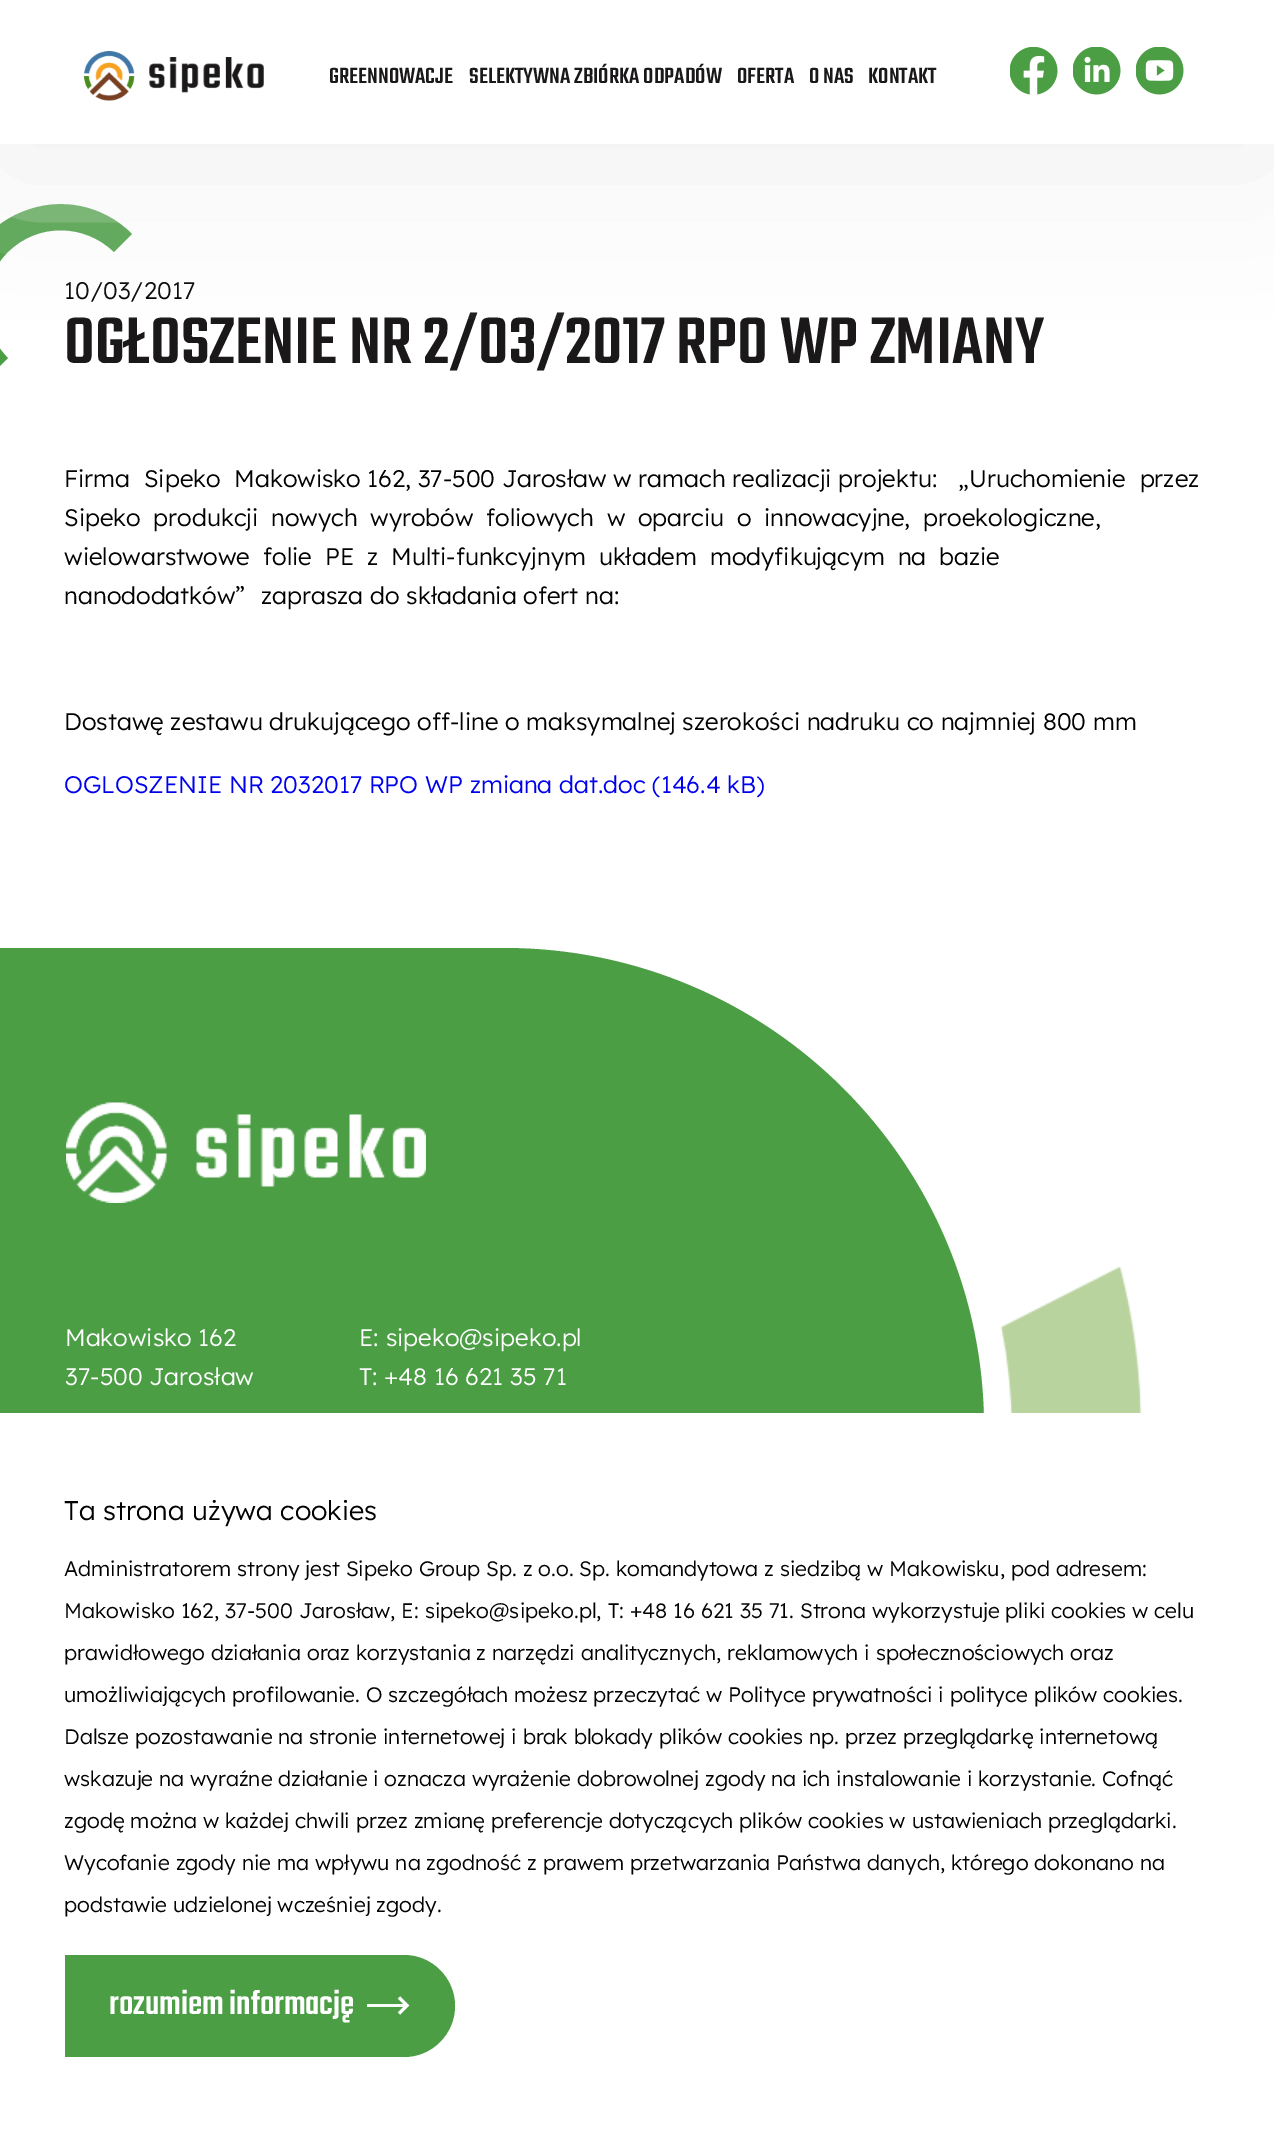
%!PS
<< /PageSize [1274 2131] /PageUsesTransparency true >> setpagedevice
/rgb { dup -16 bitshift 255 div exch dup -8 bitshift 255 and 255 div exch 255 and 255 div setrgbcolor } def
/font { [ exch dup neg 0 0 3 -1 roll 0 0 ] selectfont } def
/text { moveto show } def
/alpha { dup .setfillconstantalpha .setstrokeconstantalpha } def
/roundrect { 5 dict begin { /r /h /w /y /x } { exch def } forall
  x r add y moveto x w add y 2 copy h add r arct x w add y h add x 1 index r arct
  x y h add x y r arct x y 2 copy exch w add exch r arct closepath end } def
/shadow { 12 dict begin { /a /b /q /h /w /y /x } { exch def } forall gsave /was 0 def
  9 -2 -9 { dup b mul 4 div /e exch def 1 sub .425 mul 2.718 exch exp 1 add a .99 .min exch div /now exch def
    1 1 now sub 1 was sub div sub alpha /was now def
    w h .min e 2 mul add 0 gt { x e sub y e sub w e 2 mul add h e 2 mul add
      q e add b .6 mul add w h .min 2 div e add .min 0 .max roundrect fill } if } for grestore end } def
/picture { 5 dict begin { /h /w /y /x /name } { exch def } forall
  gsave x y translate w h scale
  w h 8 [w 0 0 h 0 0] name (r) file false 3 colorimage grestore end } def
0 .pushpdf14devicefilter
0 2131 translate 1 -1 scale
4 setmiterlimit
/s1 { /Lexend-Light 24 font 16#000000 rgb } def
/s2 { /Teko-Medium 72 font 16#1A1818 rgb } def
/s3 { /Teko-Medium 24 font 16#1A1818 rgb } def
/s4 { /Lexend-Light 24 font 16#0000EE rgb } def
/s5 { /Lexend-Light 24 font 16#FFFFFF rgb } def
/s6 { /Lexend-Light 27 font 16#000000 rgb } def
/s7 { /Lexend-Light 21 font 16#000000 rgb } def
/s8 { /Teko-Medium 36 font 16#FFFFFF rgb } def
16#FFFFFF rgb
0 0 1274 2131 rectfill
s1
(10/03/2017) 64 299 text
s2
(OGŁOSZENIE NR 2/03/2017 RPO WP ZMIANY) 64 363 text
16#4C9E45 rgb
-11 377 moveto 8 358 lineto -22 329 -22 281 8 252 curveto 37 223 84 223 114 252 curveto 132 234 lineto 103 205 60 196 22 212 curveto -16 227 -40 264 -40 305 curveto -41 332 -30 358 -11 377 curveto fill
gsave
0 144 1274 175 rectclip
16#EFEFEF rgb
0 23 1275 144 0 74 1 shadow
grestore
(pic1.raw) 84 51 180 50 picture
s3
(GREENNOWACJE) 329 83 text
(SELEKTYWNA ZBIÓRKA ODPADÓW) 469 83 text
(OFERTA) 737 83 text
(O NAS) 809 83 text
(KONTAKT) 868 83 text
(pic2.raw) 1010 47 48 48 picture
(pic3.raw) 1073 47 48 48 picture
(pic4.raw) 1136 47 48 48 picture
/Lexend-Light 24 font
16#000000 rgb
64 487 moveto 7 0 32 (Firma Sipeko Makowisko) widthshow
(162, 37-500 Jarosław w ramach realizacji projektu:) 367 487 text
958 487 moveto 7 0 32 („Uruchomienie przez) widthshow
64 526 moveto 6 0 32 (Sipeko produkcji nowych wyrobów foliowych w oparciu o innowacyjne, proekologiczne,) widthshow
64 565 moveto 6.25 0 32 (wielowarstwowe folie PE z Multi-funkcyjnym układem modyfikującym na bazie) widthshow
(nanododatków”) 64 604 text
(zaprasza do składania ofert na:) 261 604 text
(Dostawę zestawu drukującego off-line o maksymalnej szerokości nadruku co najmniej 800 mm) 64 730 text
s4
(OGLOSZENIE NR 2032017 RPO WP zmiana dat.doc \(146.4 kB\)) 64 793 text
16#4C9E45 rgb
65 948 moveto 504 948 lineto 769 948 984 1163 984 1428 curveto 984 1681 779 1886 526 1886 curveto 65 1886 lineto closepath fill
s5
(37-500 Jarosław) 65 1385 text
16#4C9E45 rgb
0 948 66 465 rectfill
(pic5.raw) 66 1102 360 101 picture
s5
(Makowisko 162) 65 1346 text
(E: sipeko@sipeko.pl) 359 1346 text
(T: +48 16 621 35 71) 359 1385 text
(pic6.raw) 1000 1267 142 146 picture
65 1413 919 473 rectfill
s6
(Ta strona używa cookies) 64 1520 text
s7
(Administratorem strony jest Sipeko Group Sp. z o.o. Sp. komandytowa z siedzibą w Makowisku, pod adresem:) 64 1576 text
(Makowisko 162, 37-500 Jarosław, E: sipeko@sipeko.pl, T: +48 16 621 35 71. Strona wykorzystuje pliki cookies w celu) 64 1618 text
(prawidłowego działania oraz korzystania z narzędzi analitycznych, reklamowych i społecznościowych oraz) 64 1660 text
(umożliwiających profilowanie. O szczegółach możesz przeczytać w Polityce prywatności i polityce plików cookies.) 64 1702 text
(Dalsze pozostawanie na stronie internetowej i brak blokady plików cookies np. przez przeglądarkę internetową) 64 1744 text
(wskazuje na wyraźne działanie i oznacza wyrażenie dobrowolnej zgody na ich instalowanie i korzystanie. Cofnąć) 64 1786 text
(zgodę można w każdej chwili przez zmianę preferencje dotyczących plików cookies w ustawieniach przeglądarki.) 64 1828 text
(Wycofanie zgody nie ma wpływu na zgodność z prawem przetwarzania Państwa danych, którego dokonano na) 64 1870 text
(podstawie udzielonej wcześniej zgody.) 64 1912 text
16#4C9E45 rgb
65 1955 moveto 404 1955 lineto 432 1955 455 1978 455 2006 curveto 455 2034 432 2057 404 2057 curveto 65 2057 lineto closepath fill
16#F9FCF9 rgb
367 2004 41 3 rectfill
16#FFFFFF rgb
2.9 setlinewidth
399 1997.5 moveto 407 2005.5 lineto 399 2013.5 lineto stroke
s8
(rozumiem informację) 109 2014 text
.poppdf14devicefilter showpage
